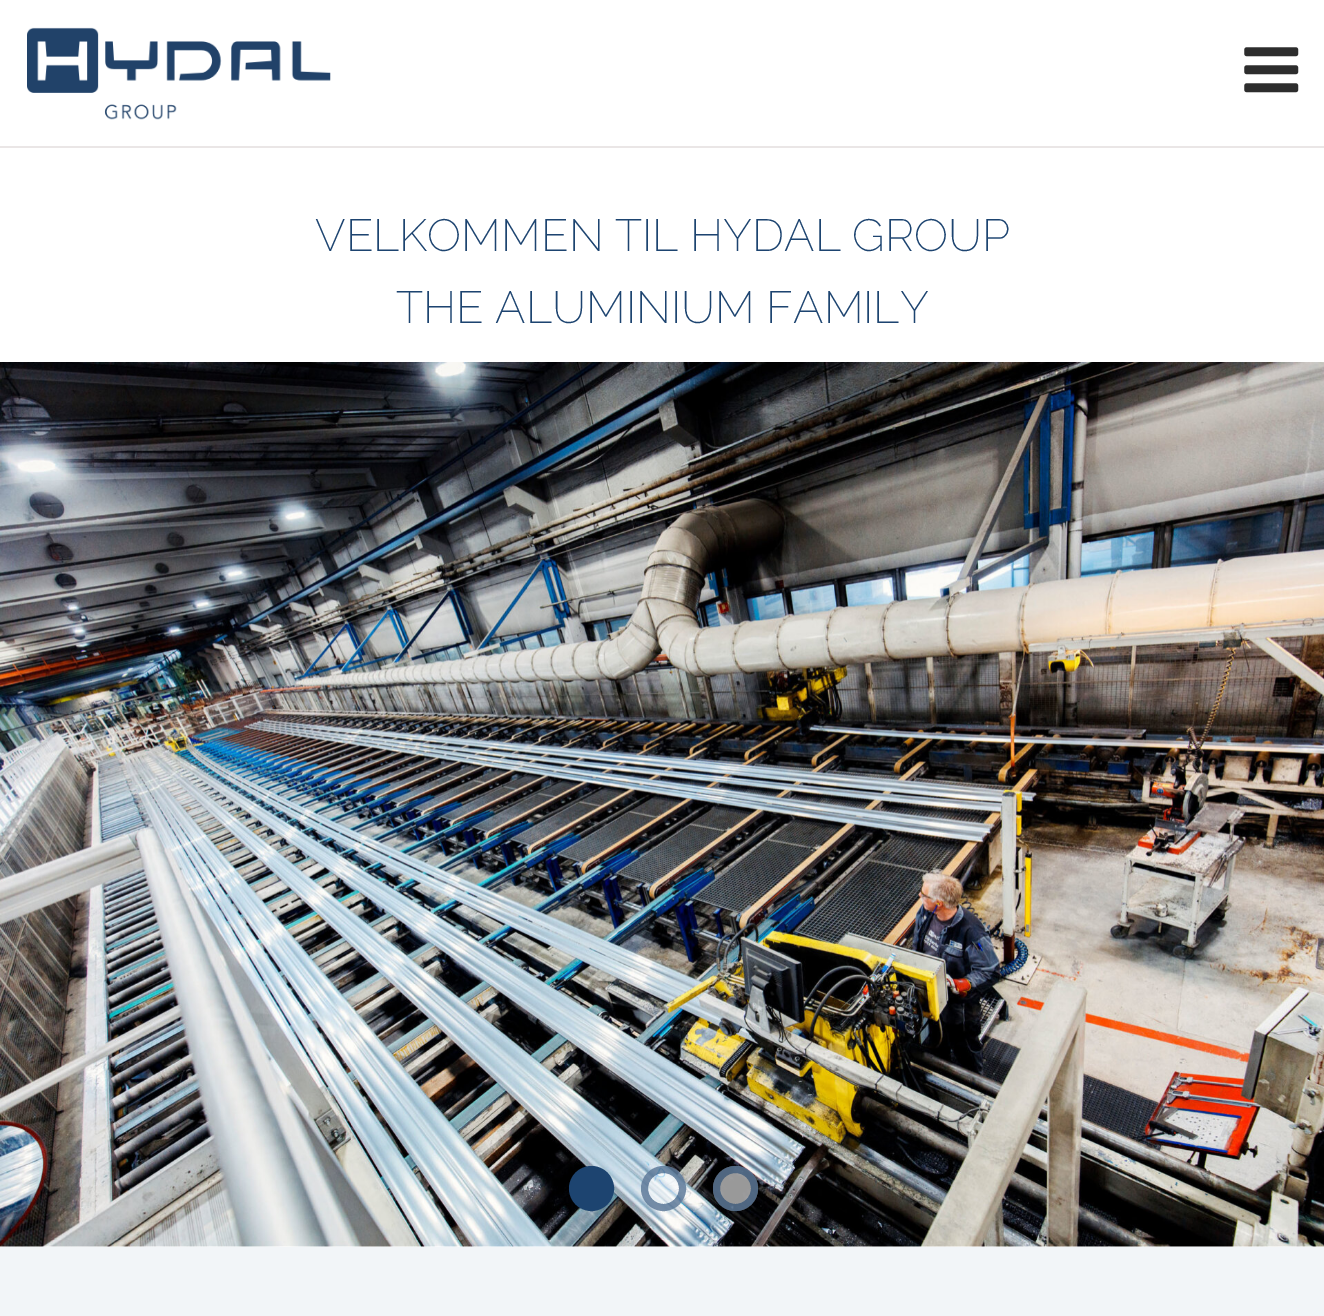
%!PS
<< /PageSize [1324 1316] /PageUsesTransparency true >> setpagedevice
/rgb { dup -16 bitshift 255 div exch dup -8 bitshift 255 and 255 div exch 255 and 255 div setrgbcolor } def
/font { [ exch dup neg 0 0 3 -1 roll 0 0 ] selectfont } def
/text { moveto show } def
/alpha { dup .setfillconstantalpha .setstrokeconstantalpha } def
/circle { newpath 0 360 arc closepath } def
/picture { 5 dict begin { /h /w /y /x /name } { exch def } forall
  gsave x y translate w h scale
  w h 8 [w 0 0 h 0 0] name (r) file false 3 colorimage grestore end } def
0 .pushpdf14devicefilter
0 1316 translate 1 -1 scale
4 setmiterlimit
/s1 { /Raleway-ExtraLight 45 font 16#1D4470 rgb } def
16#FFFFFF rgb
0 0 1324 1316 rectfill
16#EAE6E6 rgb
0 146 1324 2 rectfill
(pic1.raw) 27 27 304 93 picture
(pic2.raw) 1244 47 55 46 picture
s1
(VELKOMMEN TIL HYDAL GROUP) 315 251 text
(THE ALUMINIUM FAMILY) 396 323 text
(pic3.raw) 0 362 1324 885 picture
591.5 1188.5 19 circle gsave fill grestore
7 setlinewidth
stroke
0.6 alpha
16#FFFFFF rgb
663.5 1188.5 22.5 circle fill
16#1D4470 rgb
663.5 1188.5 19 circle stroke
16#FFFFFF rgb
735.5 1188.5 22.5 circle fill
16#1D4470 rgb
735.5 1188.5 19 circle stroke
1 alpha
16#F2F5F8 rgb
0 1247 1324 69 rectfill
.poppdf14devicefilter showpage
